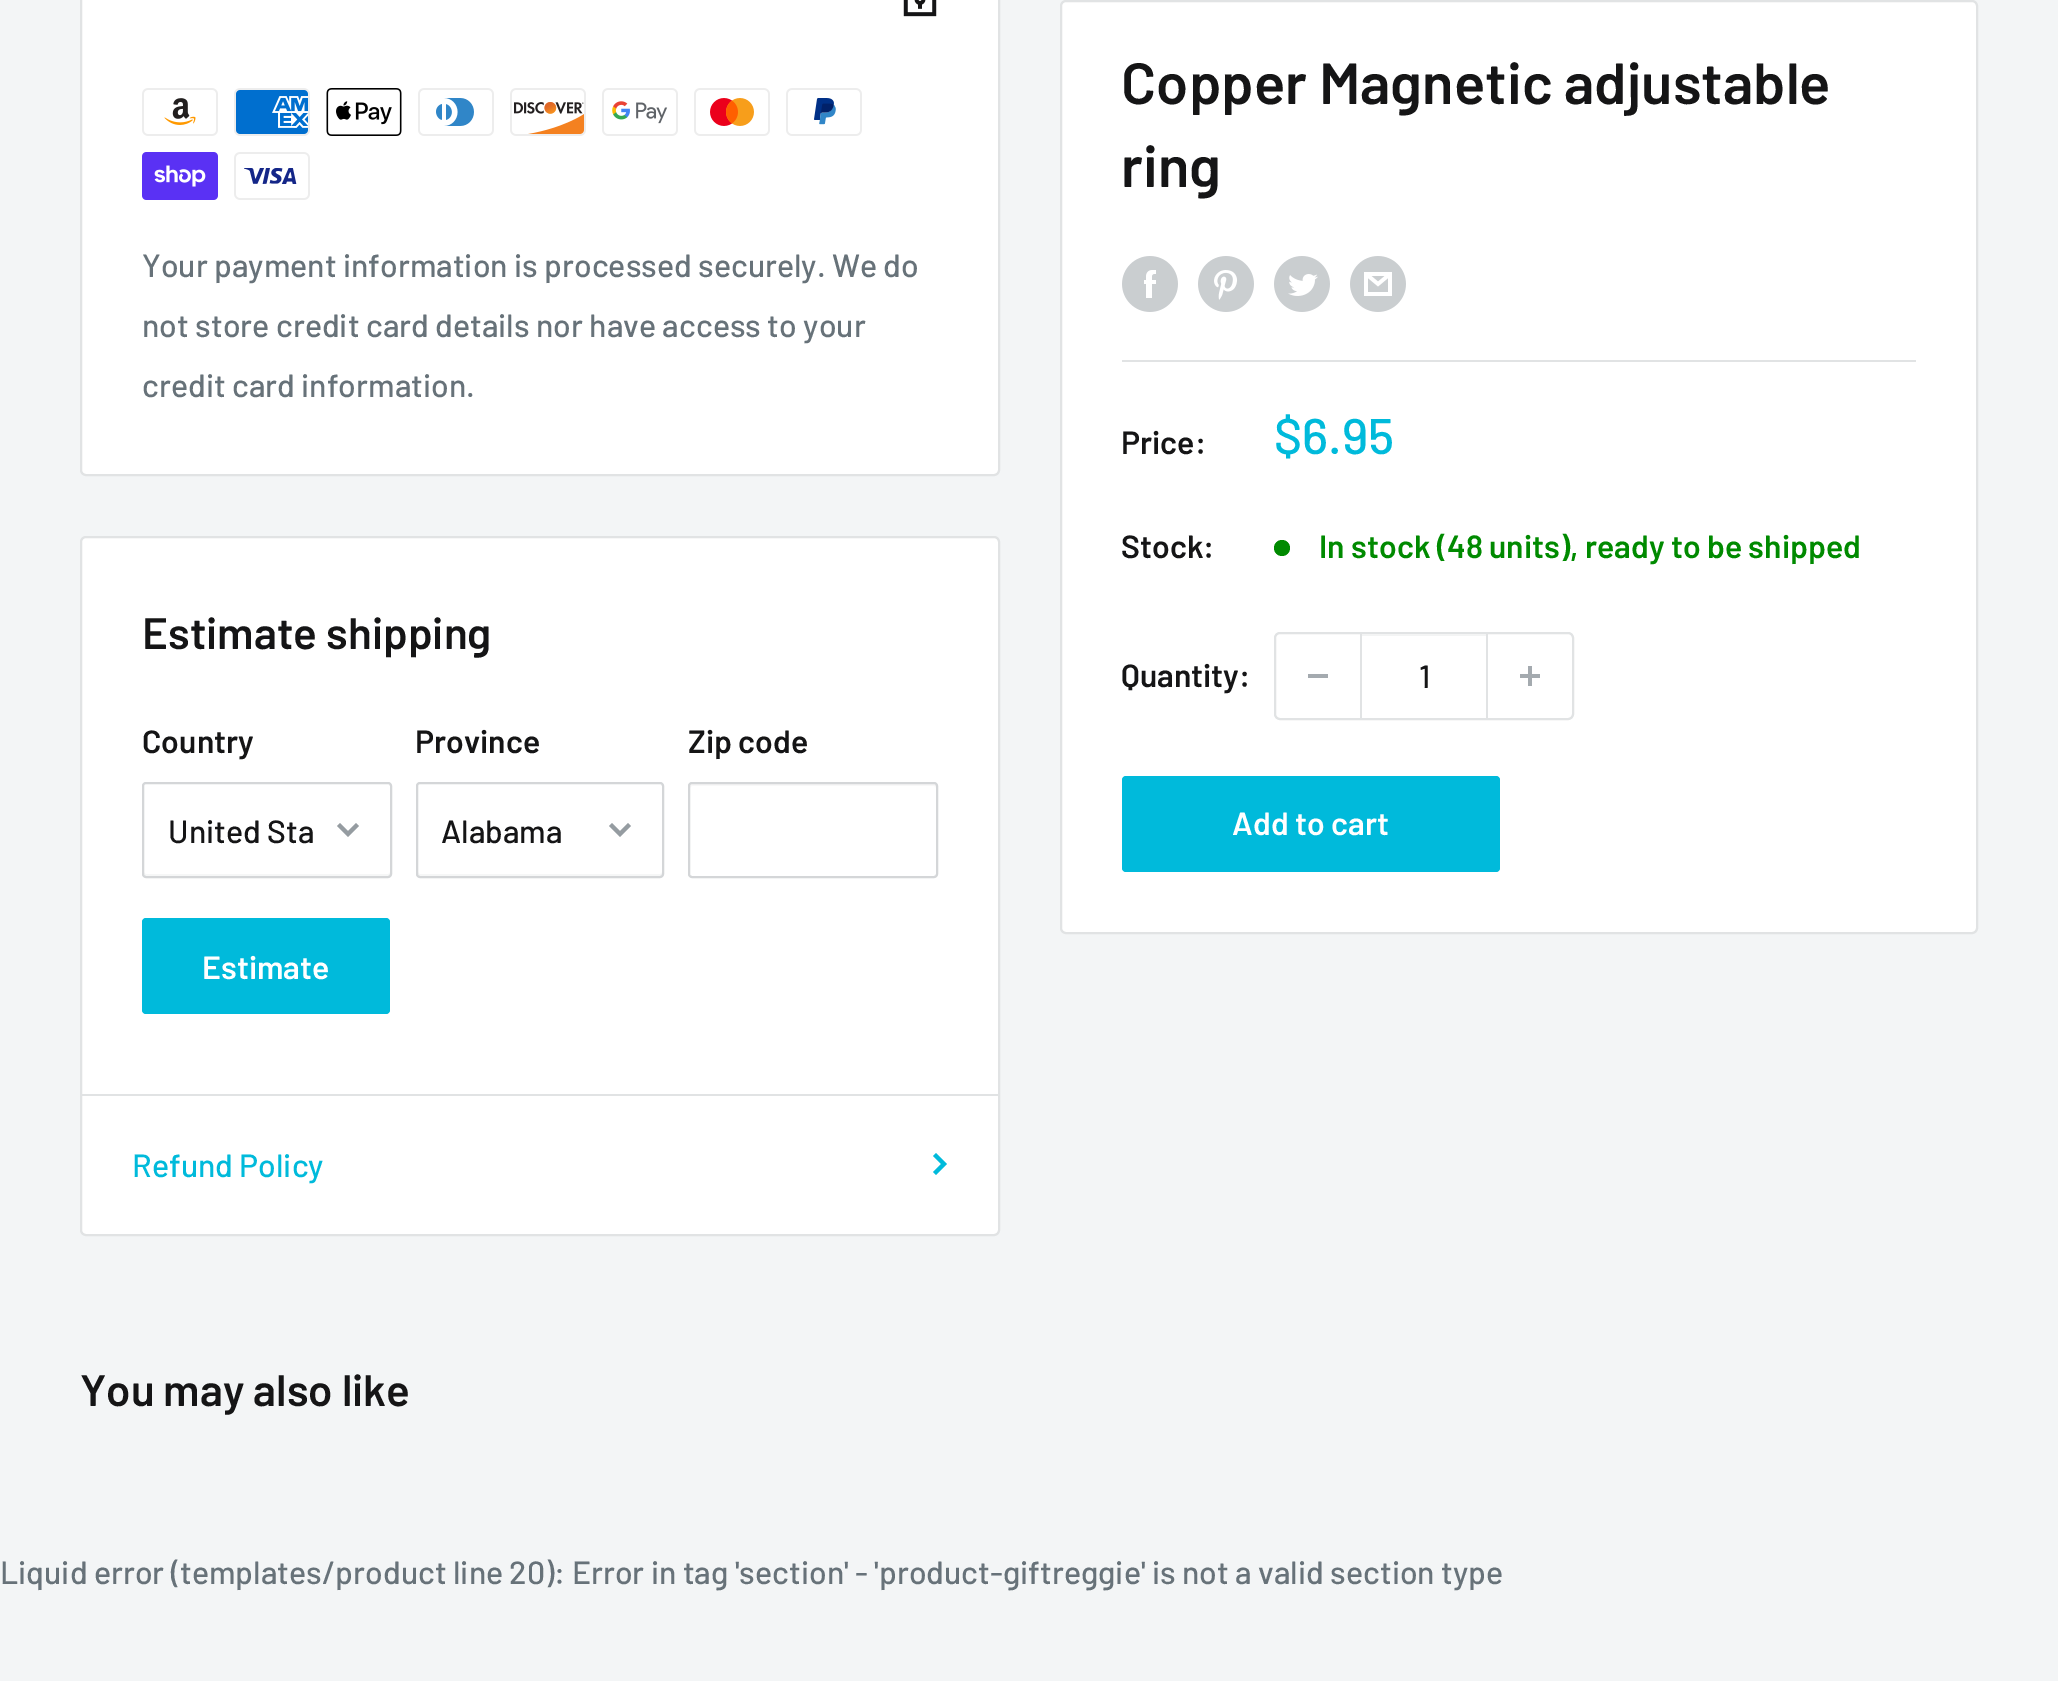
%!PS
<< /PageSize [2058 1681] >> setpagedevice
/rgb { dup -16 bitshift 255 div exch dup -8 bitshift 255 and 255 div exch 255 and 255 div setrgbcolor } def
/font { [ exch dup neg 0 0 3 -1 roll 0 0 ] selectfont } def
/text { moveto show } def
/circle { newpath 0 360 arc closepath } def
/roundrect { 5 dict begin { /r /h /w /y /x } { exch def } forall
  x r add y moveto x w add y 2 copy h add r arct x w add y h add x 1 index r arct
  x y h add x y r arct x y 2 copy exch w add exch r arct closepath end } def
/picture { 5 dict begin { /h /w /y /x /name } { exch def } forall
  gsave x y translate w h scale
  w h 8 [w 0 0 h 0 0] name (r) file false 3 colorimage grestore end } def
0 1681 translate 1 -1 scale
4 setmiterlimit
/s1 { /Barlow-Medium 32 font 16#677279 rgb } def
/s2 { /Barlow-SemiBold 58 font 16#151516 rgb } def
/s3 { /Barlow-SemiBold 32 font 16#151516 rgb } def
/s4 { /Barlow-Medium 50 font 16#00BADB rgb } def
/s5 { /Barlow-SemiBold 32 font 16#008A00 rgb } def
/s6 { /Barlow-Medium 32 font 16#151516 rgb } def
/s7 { /Barlow-SemiBold 32 font 16#FFFFFF rgb } def
/s8 { /Barlow-SemiBold 44 font 16#151516 rgb } def
/s9 { /Barlow-Medium 32 font 16#00BADB rgb } def
16#F3F5F6 rgb
0 0 2058 1681 rectfill
16#FFFFFF rgb
81 -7 918 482 5 roundrect gsave fill grestore
16#E1E3E4 rgb
2 setlinewidth
stroke
(pic1.raw) 903 0 34 17 picture
(pic2.raw) 142 88 76 48 picture
(pic3.raw) 234 88 76 48 picture
(pic4.raw) 326 88 76 48 picture
(pic5.raw) 418 88 76 48 picture
(pic6.raw) 510 88 76 48 picture
(pic7.raw) 602 88 76 48 picture
(pic8.raw) 694 88 76 48 picture
(pic9.raw) 786 88 76 48 picture
(pic10.raw) 142 152 76 48 picture
(pic11.raw) 234 152 76 48 picture
s1
(Your payment information is processed securely. We do) 142 277 text
(not store credit card details nor have access to your) 142 337 text
(credit card information.) 142 397 text
16#FFFFFF rgb
1061 1 916 932 5 roundrect gsave fill grestore
16#E1E3E4 rgb
stroke
s2
(Copper Magnetic adjustable) 1121 104 text
(ring) 1121 187 text
(pic12.raw) 1122 256 56 56 picture
(pic13.raw) 1198 256 56 56 picture
(pic14.raw) 1274 256 56 56 picture
(pic15.raw) 1350 256 56 56 picture
16#E1E3E4 rgb
1122 360 794 2 rectfill
s3
(Price:) 1121 454 text
s4
($6.95) 1274 454 text
s3
(Stock:) 1121 558 text
16#008A00 rgb
1282 548 8 circle fill
(In stock \(48 units\), ready to be shipped) 1319 558 text
s3
(Quantity:) 1121 687 text
16#E1E3E4 rgb
1275 633 298 86 5 roundrect stroke
16#A4AAAF rgb
1308 674 20 4 rectfill
16#F3F4F4 rgb
1362 634 124 2 rectfill
16#E1E3E4 rgb
1486 634 2 84 rectfill
1360 634 2 84 rectfill
s6
(1) 1419 688 text
(pic16.raw) 1520 666 20 20 picture
16#00BADB rgb
1122 776 378 96 4 roundrect fill
s7
(Add to cart) 1232 835 text
81 537 918 698 5 roundrect gsave fill grestore
16#E1E3E4 rgb
stroke
s8
(Estimate shipping) 142 649 text
s3
(Country) 142 753 text
16#F6F7F7 rgb
144 872 moveto 144 874 lineto 144 875 145 876 146 876 curveto 388 876 lineto 389 876 390 875 390 874 curveto 390 872 lineto 390 873 389 874 388 874 curveto 146 874 lineto 145 874 144 873 144 872 curveto closepath fill
16#D4D6D8 rgb
143 783 248 94 3 roundrect stroke
s6
(United Sta) 168 843 text
16#959CA1 rgb
4 setlinewidth
2 setlinecap
356 826 moveto 348 834 lineto 340 826 lineto stroke
s3
(Province) 415 753 text
16#F6F7F7 rgb
418 872 moveto 418 874 418 876 420 876 curveto 660 876 lineto 662 876 662 873 662 872 curveto 662 873 661 874 660 874 curveto 420 874 lineto 419 874 418 873 418 872 curveto closepath fill
16#D4D6D8 rgb
2 setlinewidth
0 setlinecap
417 783 246 94 3 roundrect stroke
s6
(Alabama) 441 843 text
16#959CA1 rgb
4 setlinewidth
2 setlinecap
628 826 moveto 620 834 lineto 612 826 lineto stroke
s3
(Zip code) 688 753 text
16#F8F8F8 rgb
692 786 moveto 934 786 lineto 935 786 936 787 936 788 curveto 936 786 lineto 936 785 935 784 934 784 curveto 692 784 lineto 691 784 690 785 690 786 curveto 690 788 lineto 690 787 691 786 692 786 curveto closepath fill
16#D4D6D8 rgb
2 setlinewidth
0 setlinecap
689 783 248 94 3 roundrect stroke
16#00BADB rgb
142 918 248 96 4 roundrect fill
s7
(Estimate) 202 979 text
16#E1E3E4 rgb
82 1094 916 2 rectfill
s9
(Refund Policy) 132 1177 text
4 setlinewidth
2 setlinecap
936 1156 moveto 944 1164 lineto 936 1172 lineto stroke
s8
(You may also like) 80 1406 text
s1
(Liquid error \(templates/product line 20\): Error in tag 'section' - 'product-giftreggie' is not a valid section type) 0 1584 text
showpage
